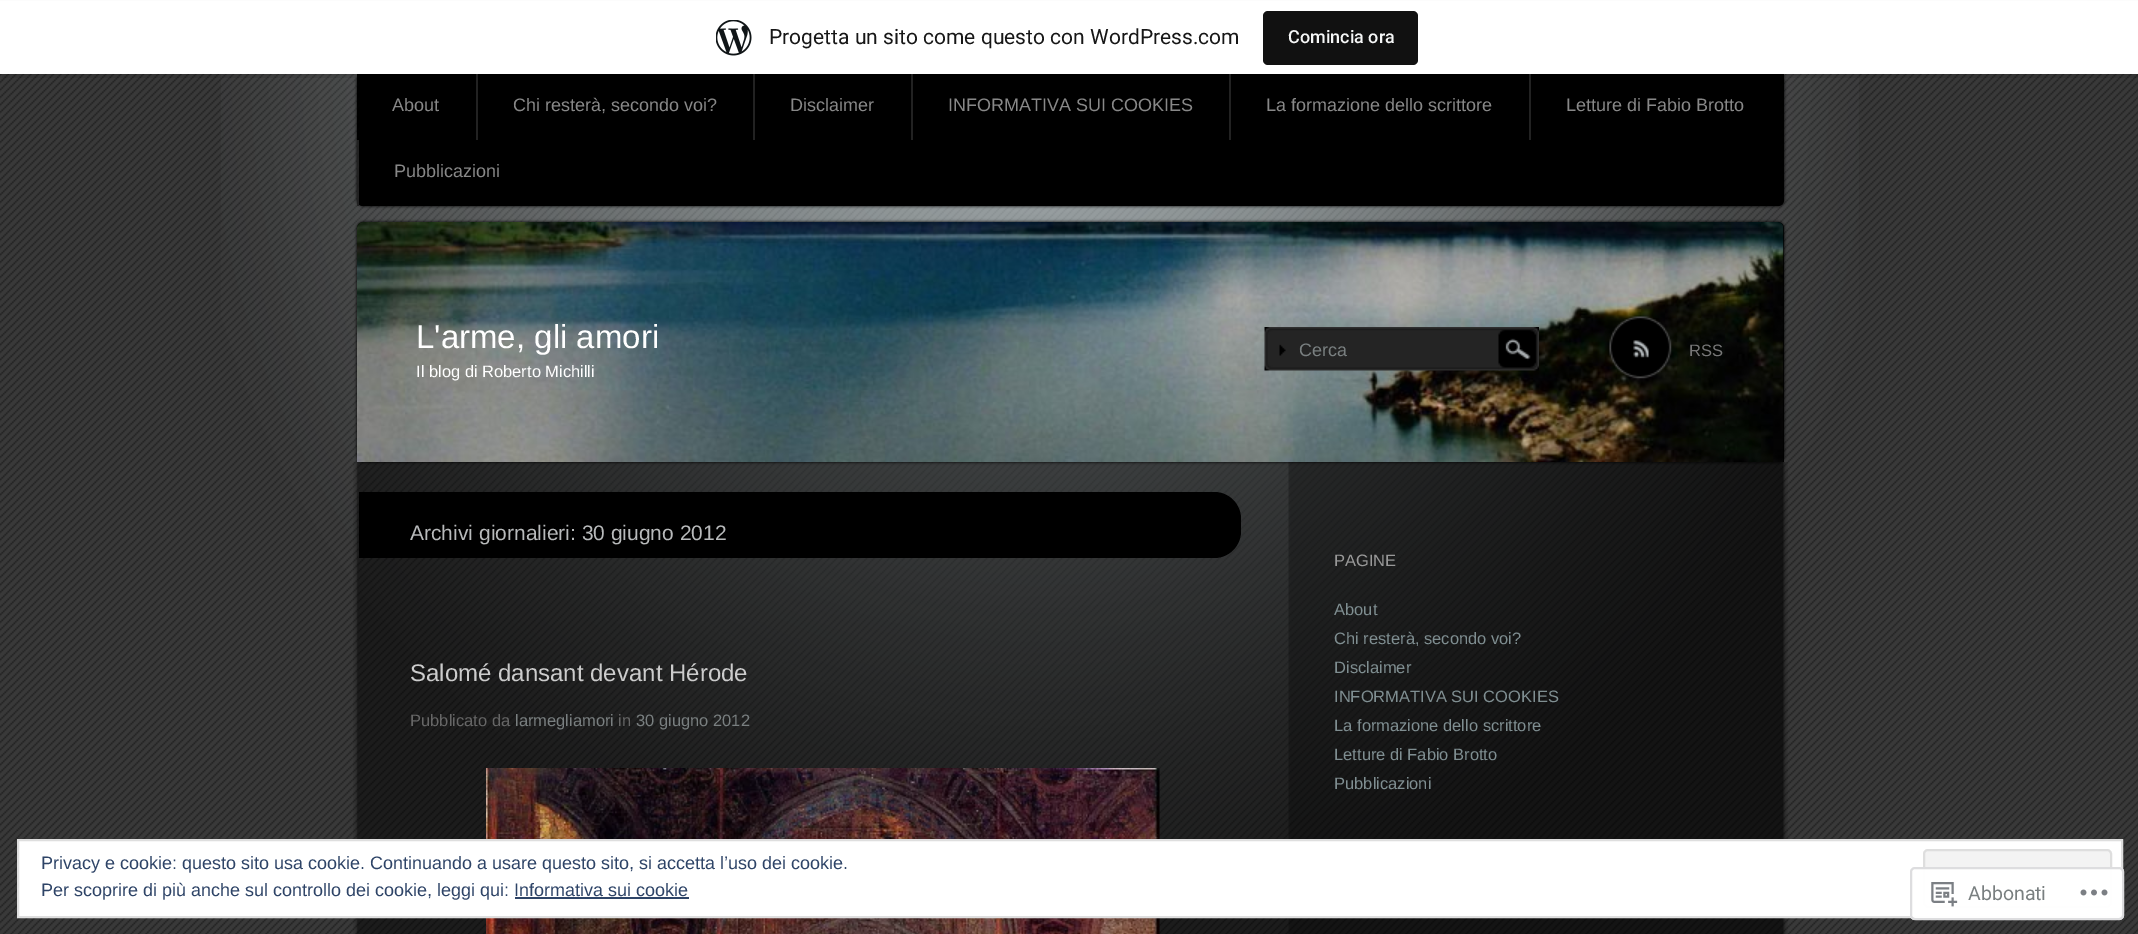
%!PS
<< /PageSize [2138 934] /PageUsesTransparency true >> setpagedevice
/rgb { dup -16 bitshift 255 div exch dup -8 bitshift 255 and 255 div exch 255 and 255 div setrgbcolor } def
/font { [ exch dup neg 0 0 3 -1 roll 0 0 ] selectfont } def
/text { moveto show } def
/alpha { dup .setfillconstantalpha .setstrokeconstantalpha } def
/roundrect { 5 dict begin { /r /h /w /y /x } { exch def } forall
  x r add y moveto x w add y 2 copy h add r arct x w add y h add x 1 index r arct
  x y h add x y r arct x y 2 copy exch w add exch r arct closepath end } def
/shadow { 12 dict begin { /a /b /q /h /w /y /x } { exch def } forall gsave /was 0 def
  9 -2 -9 { dup b mul 4 div /e exch def 1 sub .425 mul 2.718 exch exp 1 add a .99 .min exch div /now exch def
    1 1 now sub 1 was sub div sub alpha /was now def
    w h .min e 2 mul add 0 gt { x e sub y e sub w e 2 mul add h e 2 mul add
      q e add b .6 mul add w h .min 2 div e add .min 0 .max roundrect fill } if } for grestore end } def
/picture { 5 dict begin { /h /w /y /x /name } { exch def } forall
  gsave x y translate w h scale
  w h 8 [w 0 0 h 0 0] name (r) file false 3 colorimage grestore end } def
0 .pushpdf14devicefilter
0 934 translate 1 -1 scale
4 setmiterlimit
/s1 { /Roboto-Regular 21 font 16#171717 rgb } def
/s2 { /Roboto-Medium 18 font 16#F6F7F7 rgb } def
/s3 { /LiberationSans-Regular 18 font 16#888888 rgb } def
/s4 { /LiberationSans-Regular 33 font 16#FFFFFF rgb } def
/s5 { /LiberationSans-Regular 16.5 font 16#FFFFFF rgb } def
/s6 { /LiberationSans-Regular 18 font 16#797F80 rgb } def
/s7 { /LiberationSans-Regular 16.5 font 16#777777 rgb } def
/s8 { /LiberationSans-Regular 21 font 16#B8BABB rgb } def
/s9 { /LiberationSans-Regular 24 font 16#CCCCCC rgb } def
/s10 { /LiberationSans-Regular 16.5 font 16#666666 rgb } def
/s11 { /LiberationSans-Regular 16.5 font 16#797F80 rgb } def
/s12 { /LiberationSans-Regular 16.5 font 16#999999 rgb } def
/s13 { /LiberationSans-Regular 16.5 font 16#7F8E91 rgb } def
/s14 { /LiberationSans-Regular 18 font 16#2E4467 rgb } def
/s15 { /Roboto-Regular 19.5 font 16#797F80 rgb } def
16#FFFFFF rgb
0 0 2138 934 rectfill
(pic1.raw) 0 74 2138 860 picture
(pic3.raw) 221 74 1638 765 picture
16#000000 rgb
357 74 1427 132 6 1.5 1 shadow
357 74 moveto 1784 74 lineto 1784 200 lineto 1784 203.5 1781.5 206 1778 206 curveto 363 206 lineto 359.5 206 357 203.5 357 200 curveto closepath fill
16#222222 rgb
476 74 2 66 rectfill
753 74 2 66 rectfill
911 74 2 66 rectfill
1229 74 2 66 rectfill
1529 74 2 66 rectfill
16#000000 rgb
0 2 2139 73 0 1.5 0.05 shadow
0.08 alpha
2 74 moveto 2 78 lineto 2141 78 lineto 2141 5 lineto 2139 5 lineto 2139 74 lineto closepath fill
1 alpha
16#FFFFFF rgb
0 1 2138 73 rectfill
(pic2.raw) 716 20 36 36 picture
s1
(Progetta un sito come questo con WordPress.com) 769 44 text
16#111111 rgb
1263 11 155 54 5 roundrect fill
s2
(Comincia ora) 1288 43 text
s3
(About) 392 111 text
(Chi resterà, secondo voi?) 513 111 text
(Disclaimer) 790 111 text
(INFORMATIVA SUI COOKIES) 948 111 text
(La formazione dello scrittore) 1266 111 text
(Letture di Fabio Brotto) 1566 111 text
16#222222 rgb
357 140 2 66 rectfill
s3
(Pubblicazioni) 394 177 text
(pic8.raw) 353 462 1435 472 picture
16#000000 rgb
357 222 1427 240 6 1.5 1 shadow
363 222 moveto 1778 222 lineto 1781.5 222 1784 224.5 1784 228 curveto 1784 462 lineto 357 462 lineto 357 228 lineto 357 224.5 359.5 222 363 222 curveto closepath fill
(pic4.raw) 357 222 1427 240 picture
s4
(L'arme, gli amori) 416 348 text
s5
(Il blog di Roberto Michilli) 416 377 text
(pic5.raw) 1264 327 236 44 picture
s6
(Cerca) 1299 356 text
(pic6.raw) 1498 327 41 44 picture
(pic7.raw) 1609 316 63 63 picture
s7
(RSS) 1689 356 text
16#000000 rgb
359 492 moveto 1214 492 lineto 1229 492 1241 504 1241 519 curveto 1241 531 lineto 1241 546 1229 558 1214 558 curveto 359 558 lineto closepath fill
s8
(Archivi giornalieri: 30 giugno 2012) 410 540 text
s9
(Salomé dansant devant Hérode) 410 681 text
s10
(Pubblicato da) 410 726 text
s11
(larmegliamori) 515 726 text
s10
(in) 618 726 text
s11
(30 giugno 2012) 636 726 text
(pic9.raw) 486 768 674 166 picture
s12
(PAGINE) 1334 566 text
s13
(About) 1334 615 text
(Chi resterà, secondo voi?) 1334 644 text
(Disclaimer) 1334 673 text
(INFORMATIVA SUI COOKIES) 1334 702 text
(La formazione dello scrittore) 1334 731 text
(Letture di Fabio Brotto) 1334 760 text
(Pubblicazioni) 1334 789 text
16#FFFFFF rgb
18 840 moveto 2122 840 lineto 2122 917 lineto 18 917 lineto closepath gsave fill grestore
16#DEDEDE rgb
2 setlinewidth
stroke
s14
(Privacy e cookie: questo sito usa cookie. Continuando a usare questo sito, si accetta l’uso dei cookie.) 41 869 text
16#F3F3F3 rgb
1924 850 187 57 4 roundrect gsave fill grestore
16#DEDEDE rgb
stroke
s14
(Per scoprire di più anche sul controllo dei cookie, leggi qui: Informativa sui cookie) 41 896 text
515 897 174 2 rectfill
0.98 alpha
16#FFFFFF rgb
1910 867 214 53 5 roundrect fill
16#DCDCDE rgb
1911 868 212 51 4 roundrect stroke
1 alpha
(pic10.raw) 1931 882 27 25 picture
s15
(Abbonati) 1968 900 text
(pic11.raw) 2080 889 28 7 picture
.poppdf14devicefilter showpage
